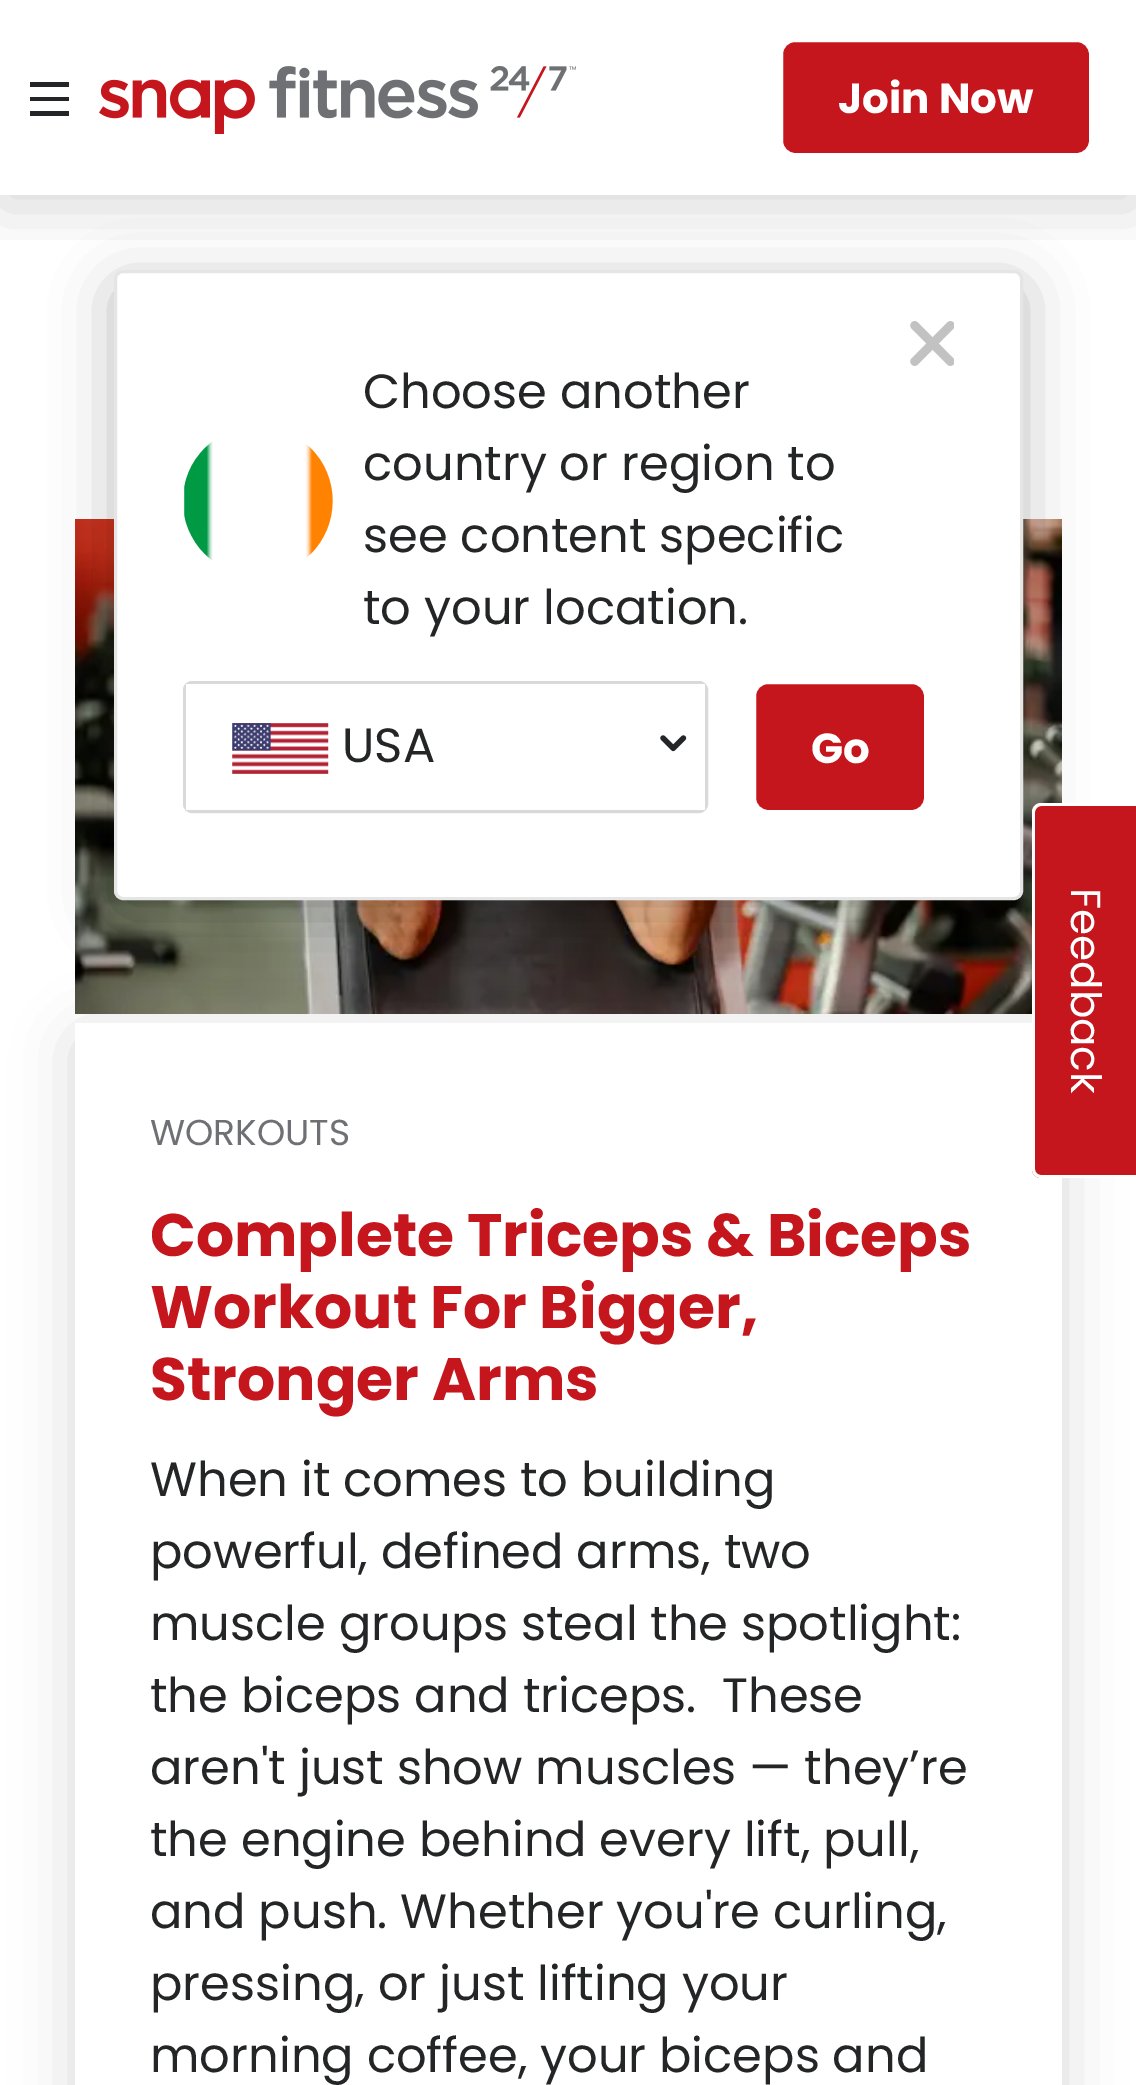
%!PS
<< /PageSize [1136 2085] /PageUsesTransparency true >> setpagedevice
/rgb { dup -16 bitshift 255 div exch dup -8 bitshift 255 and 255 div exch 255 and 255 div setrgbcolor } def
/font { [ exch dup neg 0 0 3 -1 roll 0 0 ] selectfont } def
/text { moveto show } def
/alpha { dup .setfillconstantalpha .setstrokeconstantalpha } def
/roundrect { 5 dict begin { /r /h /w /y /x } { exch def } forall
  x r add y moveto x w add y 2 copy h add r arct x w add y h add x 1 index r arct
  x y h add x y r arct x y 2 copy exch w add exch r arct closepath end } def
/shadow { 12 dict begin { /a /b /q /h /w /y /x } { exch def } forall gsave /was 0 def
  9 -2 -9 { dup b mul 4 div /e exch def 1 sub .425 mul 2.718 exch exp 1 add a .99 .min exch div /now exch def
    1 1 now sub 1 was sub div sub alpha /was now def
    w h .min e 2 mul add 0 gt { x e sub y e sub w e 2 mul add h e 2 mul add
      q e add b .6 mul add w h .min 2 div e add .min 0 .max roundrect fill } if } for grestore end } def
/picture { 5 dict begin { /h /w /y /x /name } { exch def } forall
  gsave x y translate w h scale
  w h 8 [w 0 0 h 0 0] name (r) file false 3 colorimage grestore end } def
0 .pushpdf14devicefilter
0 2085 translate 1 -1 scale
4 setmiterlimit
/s1 { /Poppins-Bold 42 font 16#FFFFFF rgb } def
/s2 { /Poppins-Regular 48 font 16#242526 rgb } def
/s3 { /Poppins-Regular 36 font 16#6F7074 rgb } def
/s4 { /Poppins-Bold 60 font 16#C4161C rgb } def
16#FFFFFF rgb
0 0 1136 2085 rectfill
gsave
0 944 moveto 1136 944 lineto 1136 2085 lineto 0 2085 lineto closepath 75 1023 moveto 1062 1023 lineto 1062 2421 lineto 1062 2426 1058 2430 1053 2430 curveto 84 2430 lineto 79 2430 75 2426 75 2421 curveto closepath eoclip newpath
16#000000 rgb
75 1035 987 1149 9 30 0.15 shadow
grestore
(pic6.raw) 75 519 987 495 picture
16#000000 rgb
114 285 909 630 9 30 0.25 shadow
16#FFFFFF rgb
115.5 271.5 906 627 7.5 roundrect gsave fill grestore
16#E5E5E5 rgb
3 setlinewidth
stroke
gsave
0 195 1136 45 rectclip
16#000000 rgb
0 12 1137 195 0 30 0.15 shadow
grestore
16#242526 rgb
30 82 39 5 rectfill
30 97 39 4 rectfill
30 111 39 5 rectfill
(pic1.raw) 99 66 477 68 picture
16#C4161C rgb
781.5 40.5 309 114 13.5 roundrect gsave fill grestore
16#FFFFFF rgb
stroke
s1
(Join Now) 838 113 text
(pic2.raw) 184 441 149 120 picture
s2
(Choose another) 363 408 text
(country or region to) 363 480 text
(see content specific) 363 552 text
(to your location.) 363 624 text
(pic3.raw) 910 321 44 45 picture
16#D9D9D9 rgb
184.5 682.5 522 129 7.5 roundrect stroke
16#FFFFFF rgb
186 684 519 126 rectfill
(pic4.raw) 232 723 97 51 picture
s2
(USA) 342 762 text
(pic5.raw) 660 735 27 17 picture
16#C4161C rgb
754.5 682.5 171 129 13.5 roundrect gsave fill grestore
16#FFFFFF rgb
stroke
s1
(Go) 811 763 text
16#C4161C rgb
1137 803 moveto 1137 1178 lineto 1041 1178 lineto 1036 1178 1032 1174 1032 1169 curveto 1032 812 lineto 1032 807 1036 803 1041 803 curveto closepath fill
16#FFFFFF rgb
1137 803 moveto 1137 1178 lineto 1041 1178 lineto 1036 1178 1032 1174 1032 1169 curveto 1032 812 lineto 1032 807 1036 803 1041 803 curveto closepath 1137 806 moveto 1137 1175 lineto 1041 1175 lineto 1038 1175 1035 1173 1035 1169 curveto 1035 812 lineto 1035 809 1038 806 1041 806 curveto closepath eofill
/Poppins-Regular 42 font
gsave 1071 888 translate 90 rotate 0 0 moveto (Feedback) show grestore
s3
(WORKOUTS) 150 1145 text
s4
(Complete Triceps & Biceps) 150 1256 text
(Workout For Bigger,) 150 1328 text
(Stronger Arms) 150 1400 text
s2
(When it comes to building) 150 1496 text
(powerful, defined arms, two) 150 1568 text
(muscle groups steal the spotlight:) 150 1640 text
(the biceps and triceps.  These) 150 1712 text
(aren't just show muscles — they’re) 150 1784 text
(the engine behind every lift, pull,) 150 1856 text
(and push. Whether you're curling,) 150 1928 text
(pressing, or just lifting your) 150 2000 text
(morning coffee, your biceps and) 150 2072 text
.poppdf14devicefilter showpage
